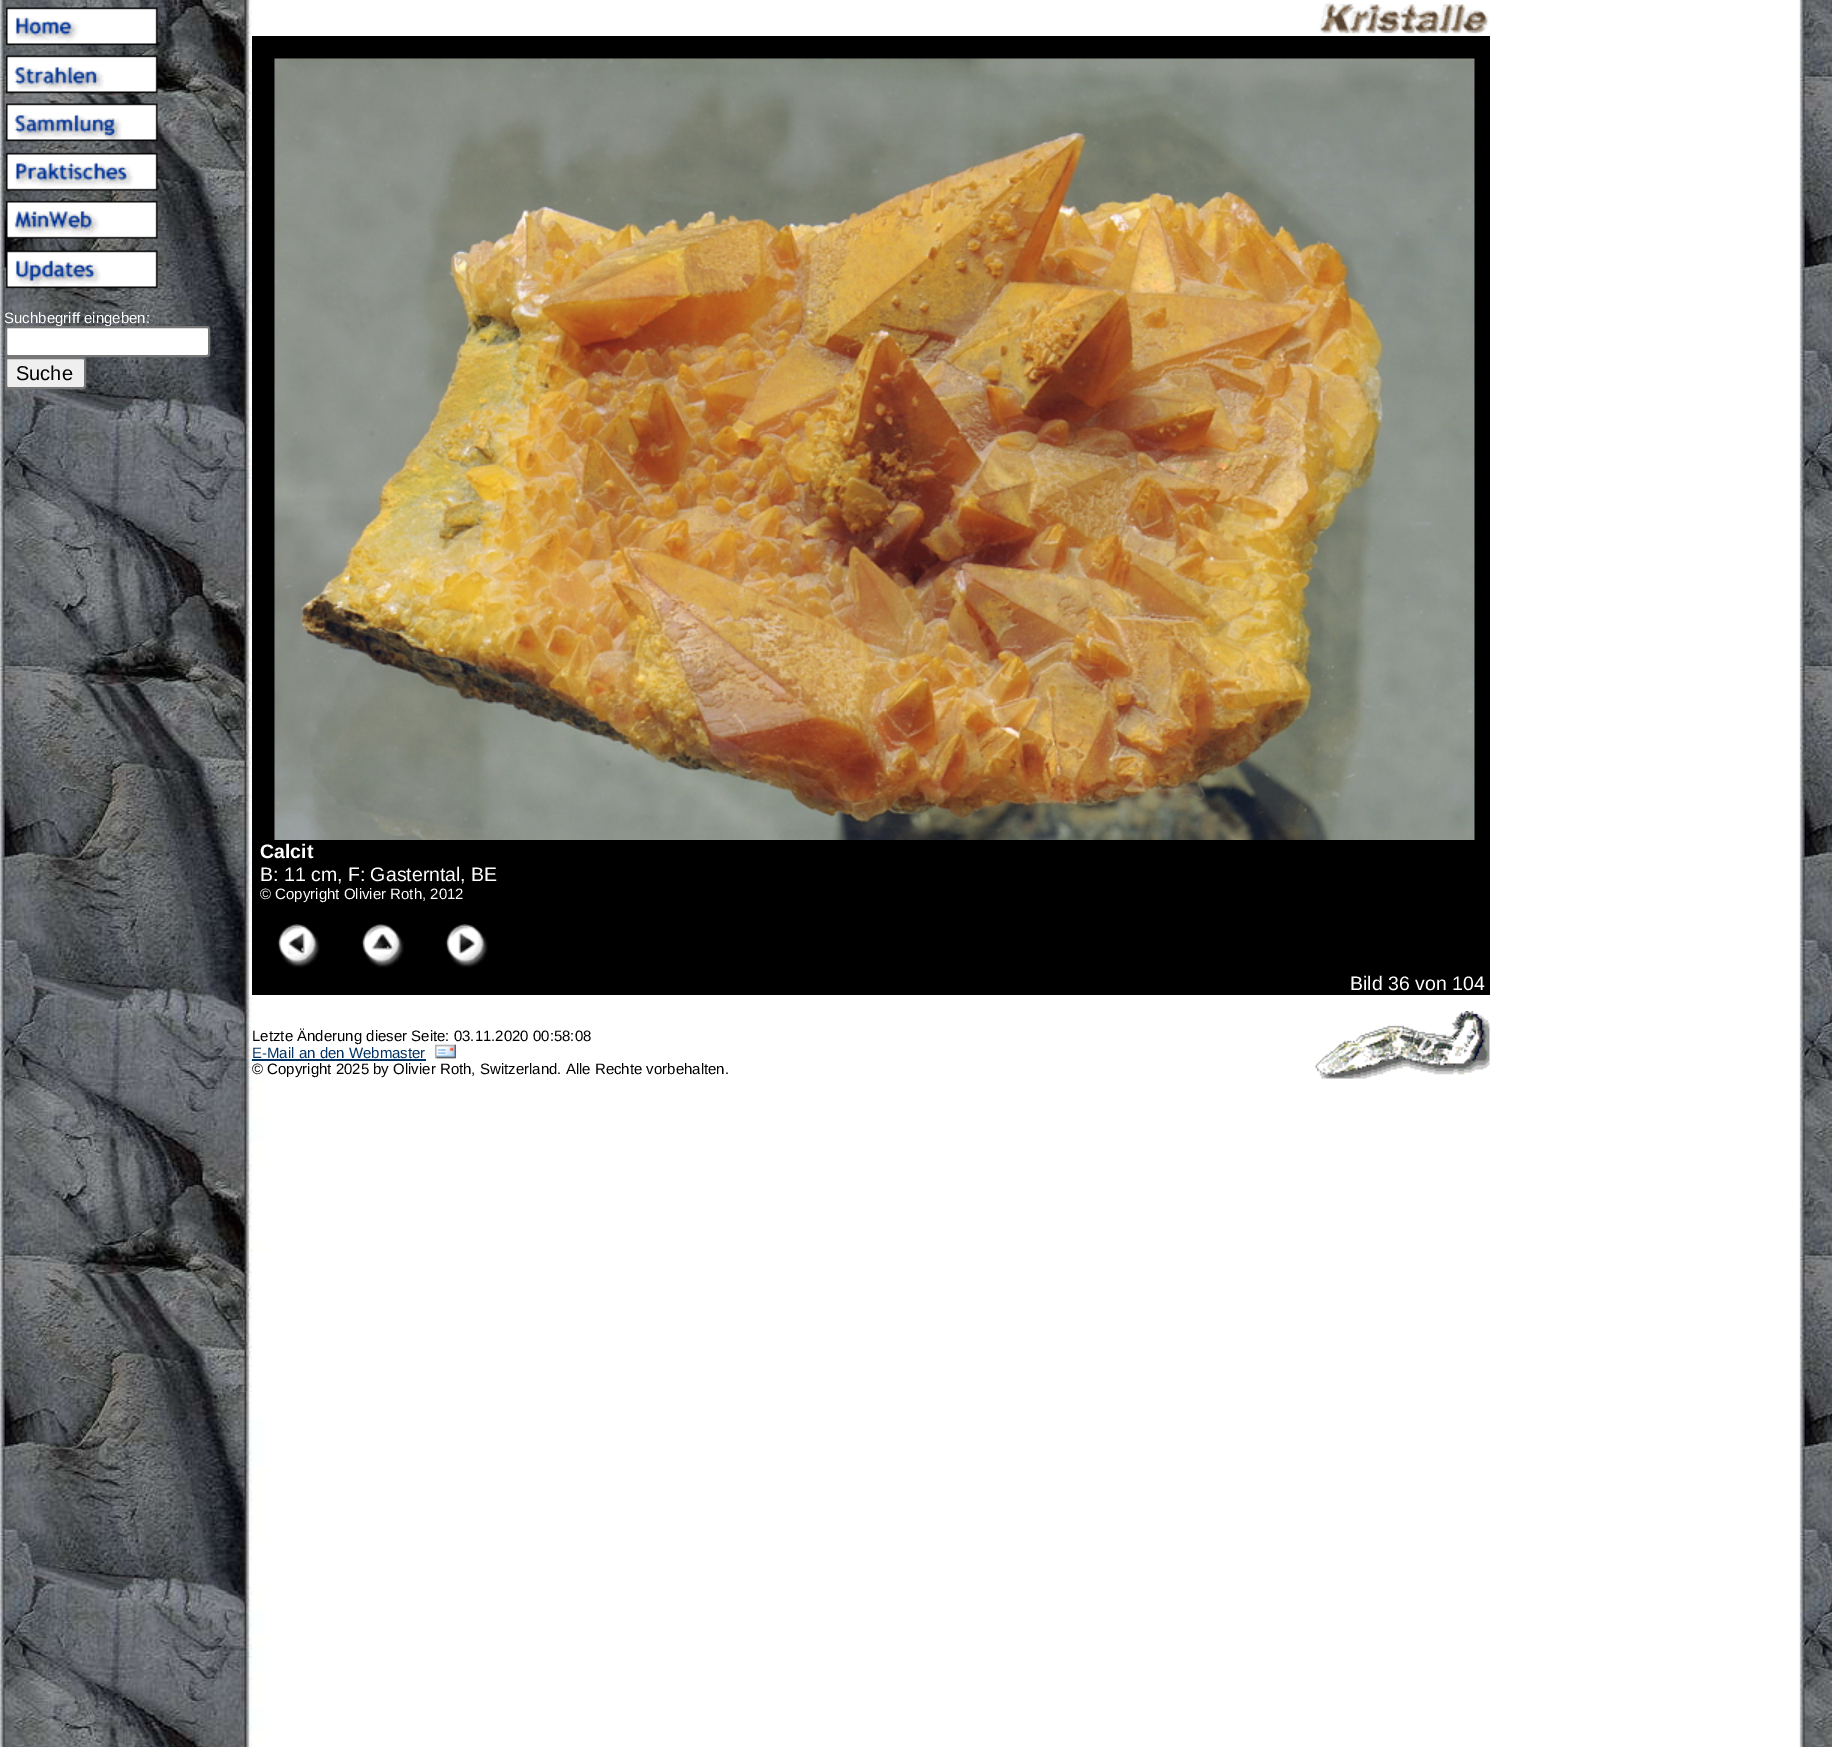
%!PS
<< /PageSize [1832 1747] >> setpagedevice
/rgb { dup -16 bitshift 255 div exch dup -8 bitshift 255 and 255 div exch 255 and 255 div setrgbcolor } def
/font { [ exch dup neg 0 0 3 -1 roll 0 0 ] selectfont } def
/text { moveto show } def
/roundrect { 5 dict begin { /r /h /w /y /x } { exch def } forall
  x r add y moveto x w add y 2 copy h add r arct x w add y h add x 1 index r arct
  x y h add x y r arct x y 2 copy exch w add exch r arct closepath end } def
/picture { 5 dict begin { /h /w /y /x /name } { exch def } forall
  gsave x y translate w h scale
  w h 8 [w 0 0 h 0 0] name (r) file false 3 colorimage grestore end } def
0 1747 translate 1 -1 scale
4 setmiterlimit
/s1 { /LiberationSans-Regular 15 font 16#FFFFFF rgb } def
/s2 { /LiberationSans-Regular 20 font 16#000000 rgb } def
/s3 { /LiberationSans-Bold 19.5 font 16#FFFFFF rgb } def
/s4 { /LiberationSans-Regular 19.5 font 16#FFFFFF rgb } def
/s5 { /LiberationSans-Regular 15 font 16#000000 rgb } def
/s6 { /LiberationSans-Regular 15 font 16#003366 rgb } def
16#FFFFFF rgb
0 0 1832 1747 rectfill
(pic1.raw) 0 0 1832 1747 picture
(pic2.raw) 5 7 153 282 picture
s1
(Suchbegriff eingeben:) 4 323 text
6 327 203 29 2 roundrect gsave fill grestore
16#767676 rgb
2 setlinewidth
stroke
16#EFEFEF rgb
6 358 79 30 2 roundrect gsave fill grestore
16#767676 rgb
stroke
s2
(Suche) 16 380 text
16#FFFFFF rgb
252 12 1 24 rectfill
(pic3.raw) 1319 3 170 31 picture
16#000000 rgb
252 36 1238 959 rectfill
(pic4.raw) 274 58 1201 782 picture
s3
(Calcit) 260 858 text
s4
(B: 11 cm, F: Gasterntal, BE) 260 881 text
s1
(© Copyright Olivier Roth, 2012) 260 899 text
(pic5.raw) 277 924 43 44 picture
(pic6.raw) 361 924 43 44 picture
(pic7.raw) 445 924 43 44 picture
s4
(Bild 36 von 104) 1350 990 text
252 998 11 81 rectfill
s5
(Letzte Änderung dieser Seite: 03.11.2020 00:58:08) 252 1041 text
(pic8.raw) 1315 1011 175 68 picture
s6
(E-Mail an den Webmaster) 252 1058 text
252 1059 174 2 rectfill
(pic9.raw) 435 1044 21 15 picture
s5
(© Copyright 2025 by Olivier Roth, Switzerland. Alle Rechte vorbehalten.) 252 1074 text
showpage
